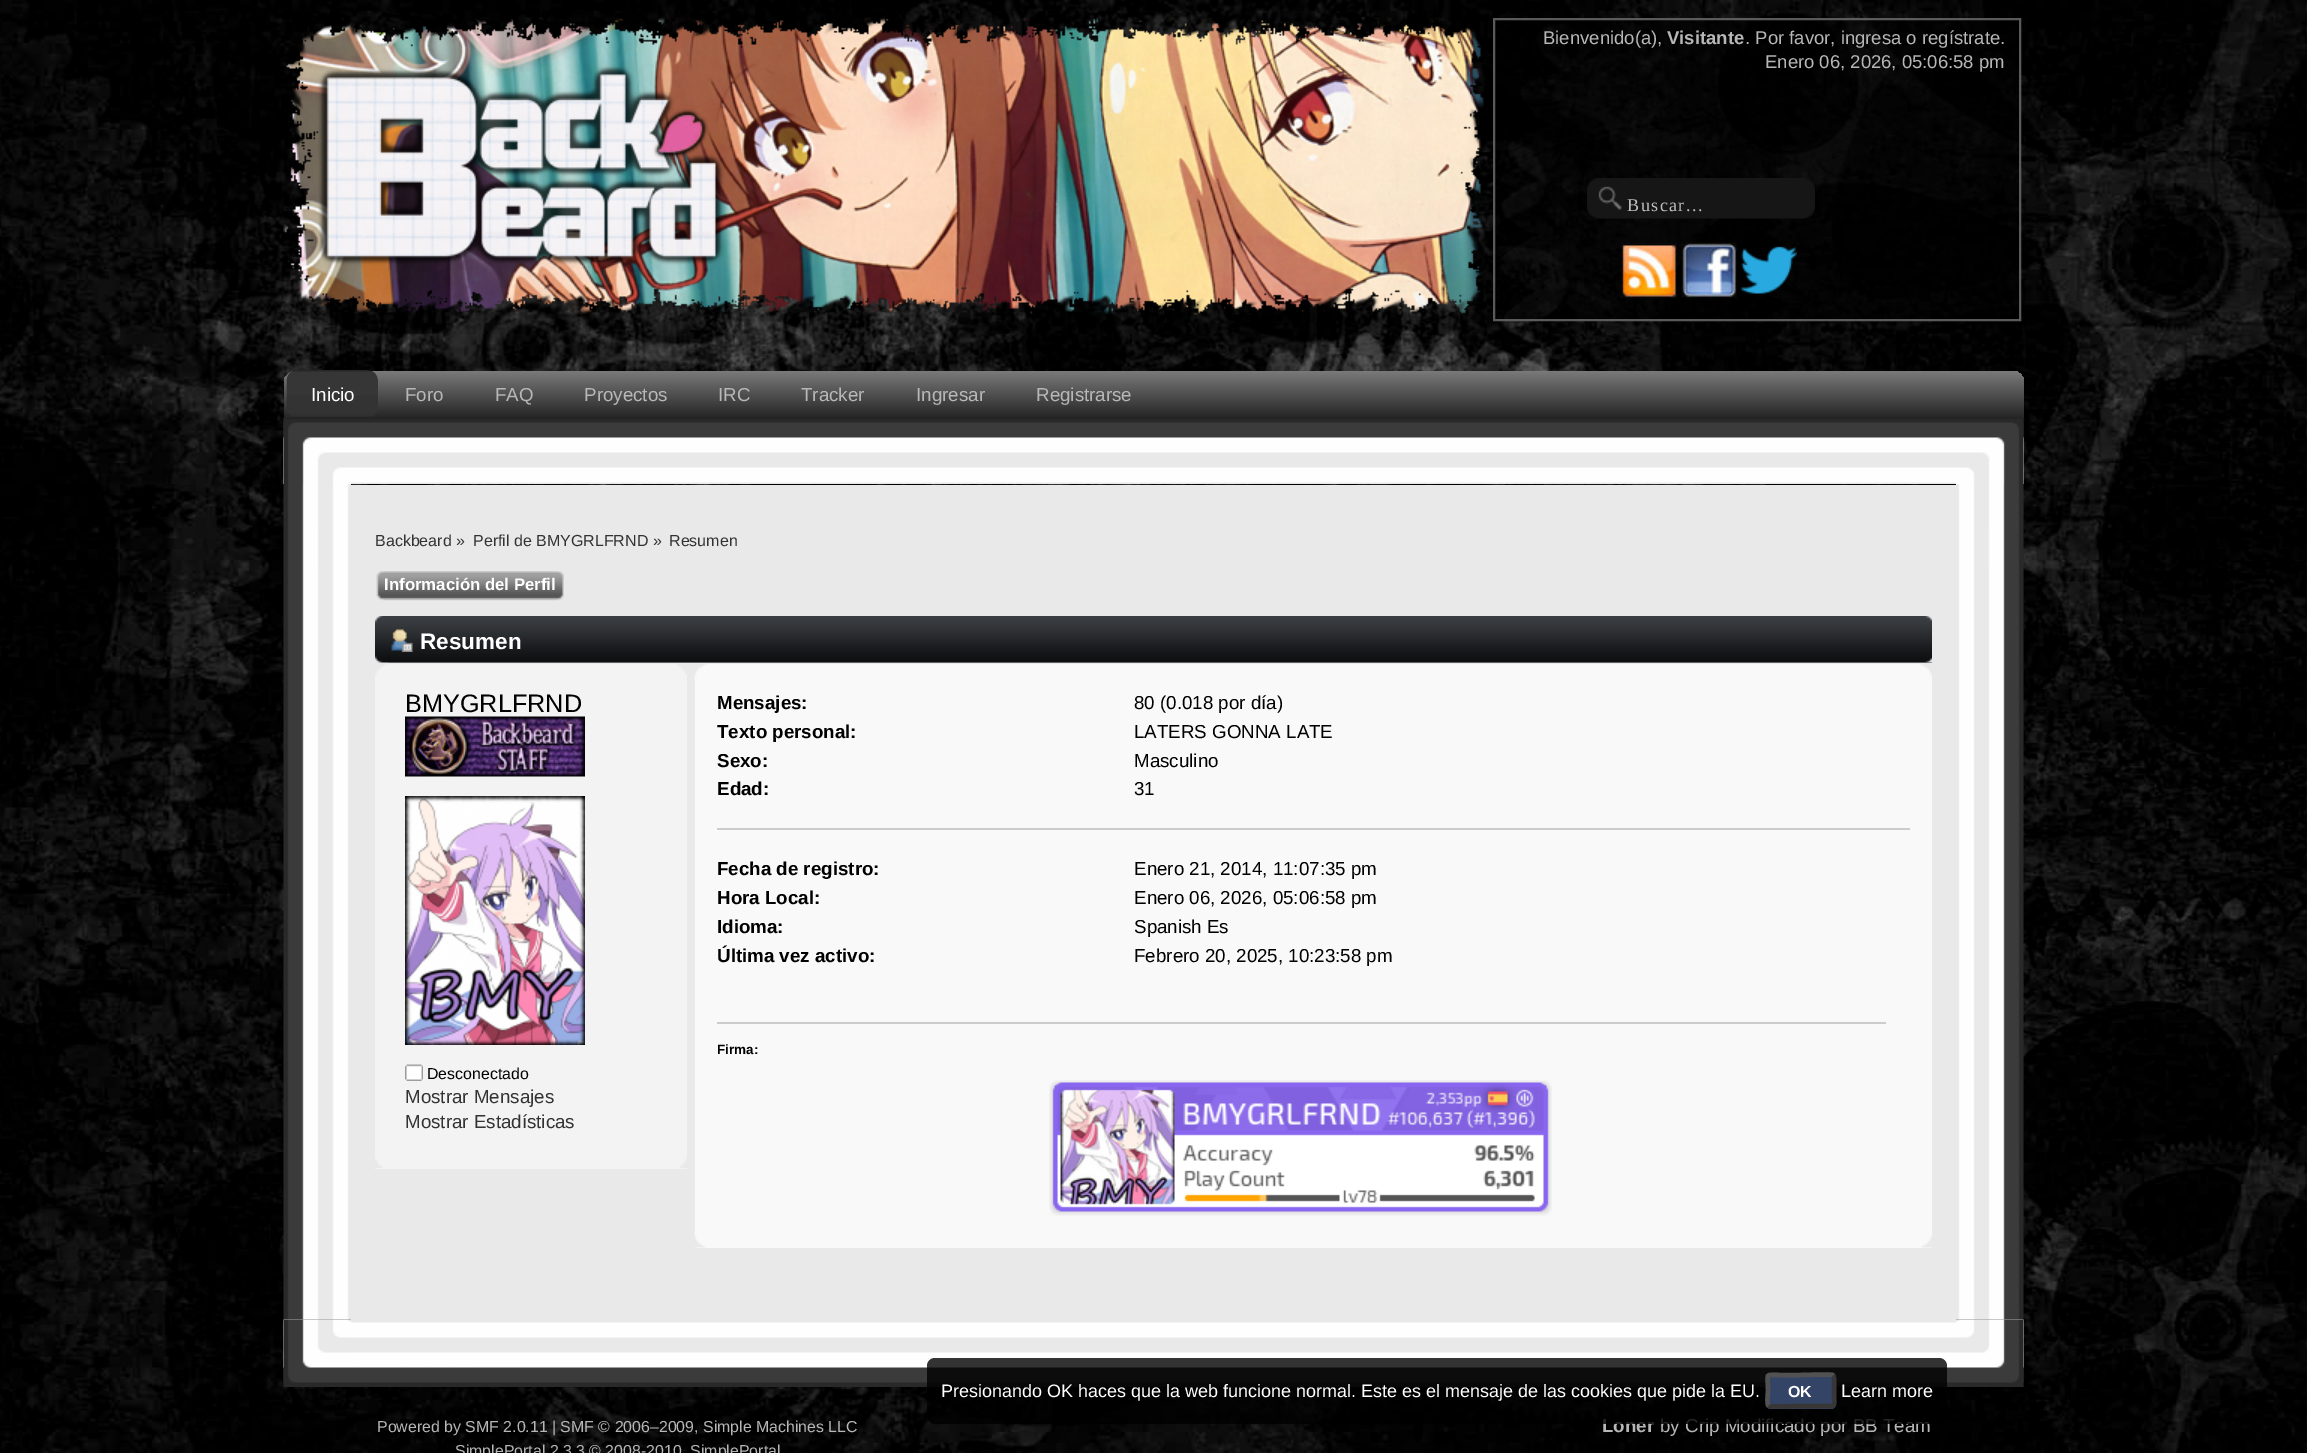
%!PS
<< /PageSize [2307 1453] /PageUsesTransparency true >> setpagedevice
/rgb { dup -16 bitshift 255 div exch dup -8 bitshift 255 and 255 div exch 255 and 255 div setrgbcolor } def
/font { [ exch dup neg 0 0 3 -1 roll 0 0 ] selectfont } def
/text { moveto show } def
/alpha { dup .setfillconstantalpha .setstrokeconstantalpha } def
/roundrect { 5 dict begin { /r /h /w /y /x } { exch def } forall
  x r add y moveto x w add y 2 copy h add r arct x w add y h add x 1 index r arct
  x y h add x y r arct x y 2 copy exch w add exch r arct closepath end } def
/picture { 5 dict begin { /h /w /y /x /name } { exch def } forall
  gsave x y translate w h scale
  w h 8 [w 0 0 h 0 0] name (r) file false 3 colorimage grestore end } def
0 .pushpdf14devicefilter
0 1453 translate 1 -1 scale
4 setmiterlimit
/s1 { /LiberationSans-Regular 18.5 font 16#B7B7B7 rgb } def
/s2 { /LiberationSans-Bold 18.5 font 16#B7B7B7 rgb } def
/s3 { /LiberationSans-Regular 18.75 font 16#FFFFFF rgb } def
/s4 { /LiberationSans-Regular 18.75 font 16#B7B7B7 rgb } def
/s5 { /LiberationSans-Regular 16 font 16#333333 rgb } def
/s6 { /LiberationSans-Bold 16.8 font 16#FFFFFF rgb } def
/s7 { /LiberationSans-Bold 22.5 font 16#FFFFFF rgb } def
/s8 { /LiberationSans-Regular 25.25 font 16#000000 rgb } def
/s9 { /LiberationSans-Regular 15.9 font 16#000000 rgb } def
/s10 { /LiberationSans-Regular 18.75 font 16#333333 rgb } def
/s11 { /LiberationSans-Bold 18.75 font 16#000000 rgb } def
/s12 { /LiberationSans-Regular 18.75 font 16#000000 rgb } def
/s13 { /LiberationSans-Bold 13.5 font 16#000000 rgb } def
/s14 { /LiberationSans-Bold 18.75 font 16#B7B7B7 rgb } def
/s15 { /LiberationSans-Regular 18 font 16#FFFFFF rgb } def
/s16 { /LiberationSans-Bold 16 font 16#FFFFFF rgb } def
/s17 { /LiberationSans-Regular 15.9 font 16#B7B7B7 rgb } def
16#FFFFFF rgb
0 0 2307 1453 rectfill
(pic1.raw) 0 0 2307 1453 picture
(pic2.raw) 283 17 1201 298 picture
0.7 alpha
16#000000 rgb
1493 18 528 303 rectfill
16#808080 rgb
2 setlinewidth
1494 19 526 301 rectstroke
1 alpha
s1
(Bienvenido\(a\),) 1543 44 text
s2
(Visitante) 1667 44 text
s1
(. Por favor, ingresa o regístrate.) 1745 44 text
(Enero 06, 2026, 05:06:58 pm) 1765 68 text
(pic3.raw) 1587 178 228 41 picture
/LiberationSerif-Regular 18 font
16#C0C0C0 rgb
1627 211 moveto 1.5 0 (Buscar...) ashow
(pic4.raw) 1621 242 56 56 picture
(pic5.raw) 1681 242 56 56 picture
(pic6.raw) 1741 246 56 48 picture
(pic8.raw) 283 418 1741 66 picture
(pic10.raw) 283 418 68 66 picture
gsave 295 371 moveto 2013 371 lineto 2019 371 2024 376 2024 382 curveto 2024 419 lineto 284 419 lineto 284 382 lineto 284 376 289 371 295 371 curveto closepath clip newpath
<< /ShadingType 2 /ColorSpace /DeviceRGB /Coords [1154 370 1154 419] /Extend [true true] /Function << /FunctionType 2 /Domain [0 1] /C0 [0.486 0.486 0.486] /C1 [0.137 0.137 0.137] /N 1 >> >> shfill grestore
(pic7.raw) 286 370 92 47 picture
s3
(Inicio) 311 401 text
s4
(Foro) 405 401 text
(FAQ) 495 401 text
(Proyectos) 584 401 text
(IRC) 718 401 text
(Tracker) 801 401 text
(Ingresar) 916 401 text
(Registrarse) 1036 401 text
(pic9.raw) 1956 419 68 65 picture
(pic11.raw) 283 484 68 836 picture
(pic12.raw) 1956 484 68 836 picture
16#E9E9E9 rgb
351 485 1605 835 rectfill
s5
(Backbeard ») 375 546 text
(Perfil de BMYGRLFRND ») 473 546 text
(Resumen) 669 546 text
(pic13.raw) 384 571 180 30 picture
(pic14.raw) 376 571 181 30 picture
s6
(Información del Perfil) 384 590 text
(pic15.raw) 375 616 1557 47 picture
(pic16.raw) 388 616 1544 47 picture
(pic17.raw) 391 629 22 23 picture
s7
(Resumen) 420 649 text
16#F3F3F3 rgb
375 675 312 494 rectfill
(pic18.raw) 375 664 301 11 picture
(pic19.raw) 676 664 11 11 picture
s8
(BMYGRLFRND) 405 712 text
(pic20.raw) 405 716 180 61 picture
(pic21.raw) 405 796 180 249 picture
(pic22.raw) 405 1064 18 17 picture
s9
(Desconectado) 427 1079 text
s10
(Mostrar Mensajes) 405 1103 text
(Mostrar Estadísticas) 405 1128 text
(pic23.raw) 375 1158 8 10 picture
(pic24.raw) 679 1158 8 10 picture
16#F9F9F9 rgb
695 680 1237 568 rectfill
(pic25.raw) 694 664 1238 17 picture
(pic26.raw) 1920 664 12 12 picture
16#CCCCCC rgb
717 828 1193 2 rectfill
s11
(Mensajes:) 717 709 text
s12
(80 \(0.018 por día\)) 1134 709 text
s11
(Texto personal:) 717 738 text
s12
(LATERS GONNA LATE) 1134 738 text
s11
(Sexo:) 717 767 text
s12
(Masculino) 1134 767 text
s11
(Edad:) 717 795 text
s12
(31) 1134 795 text
s11
(Fecha de registro:) 717 875 text
s12
(Enero 21, 2014, 11:07:35 pm) 1134 875 text
s11
(Hora Local:) 717 904 text
s12
(Enero 06, 2026, 05:06:58 pm) 1134 904 text
s11
(Idioma:) 717 933 text
s12
(Spanish Es) 1134 933 text
s11
(Última vez activo:) 717 962 text
s12
(Febrero 20, 2025, 10:23:58 pm) 1134 962 text
16#CCCCCC rgb
717 1022 1169 2 rectfill
s13
(Firma:) 717 1054 text
(pic27.raw) 1049 1080 503 136 picture
(pic28.raw) 694 1231 12 17 picture
(pic29.raw) 1921 1236 11 12 picture
(pic30.raw) 283 1319 1741 68 picture
s14
(Loner) 1602 1432 text
s4
(by Crip Modificado por BB Team) 1660 1432 text
0.8 alpha
16#000000 rgb
927 1358 1020 66 8 roundrect fill
1 alpha
s15
(Presionando OK haces que la web funcione normal. Este es el mensaje de las cookies que pide la EU.) 941 1397 text
16#334466 rgb
1766 1373 70 36 5 roundrect fill
16#373737 rgb
4.5 setlinewidth
1833 1375.5 moveto 1835 1377 1834 1388 1834 1390.5 curveto 1834 1408.5 1837.5 1406 1821 1406 curveto 1801 1406 lineto 1796.5 1406 1771 1407 1769 1406 curveto 1768.5 1405.5 lineto stroke
16#525253 rgb
1768.5 1405.5 moveto 1766.5 1404 1768 1393 1768 1390.5 curveto 1768 1372.5 1764 1375 1780 1375 curveto 1801 1375 lineto 1805 1375 1830.5 1374 1832.5 1375 curveto 1833 1375.5 lineto stroke
s16
(OK) 1788 1397 text
s15
(Learn more) 1841 1397 text
(pic31.raw) 283 1319 68 64 picture
(pic32.raw) 1956 1319 68 68 picture
s17
(Powered by SMF 2.0.11 | SMF © 2006–2009, Simple Machines LLC) 377 1432 text
(SimplePortal 2.3.3 © 2008-2010, SimplePortal) 455 1456 text
.poppdf14devicefilter showpage
